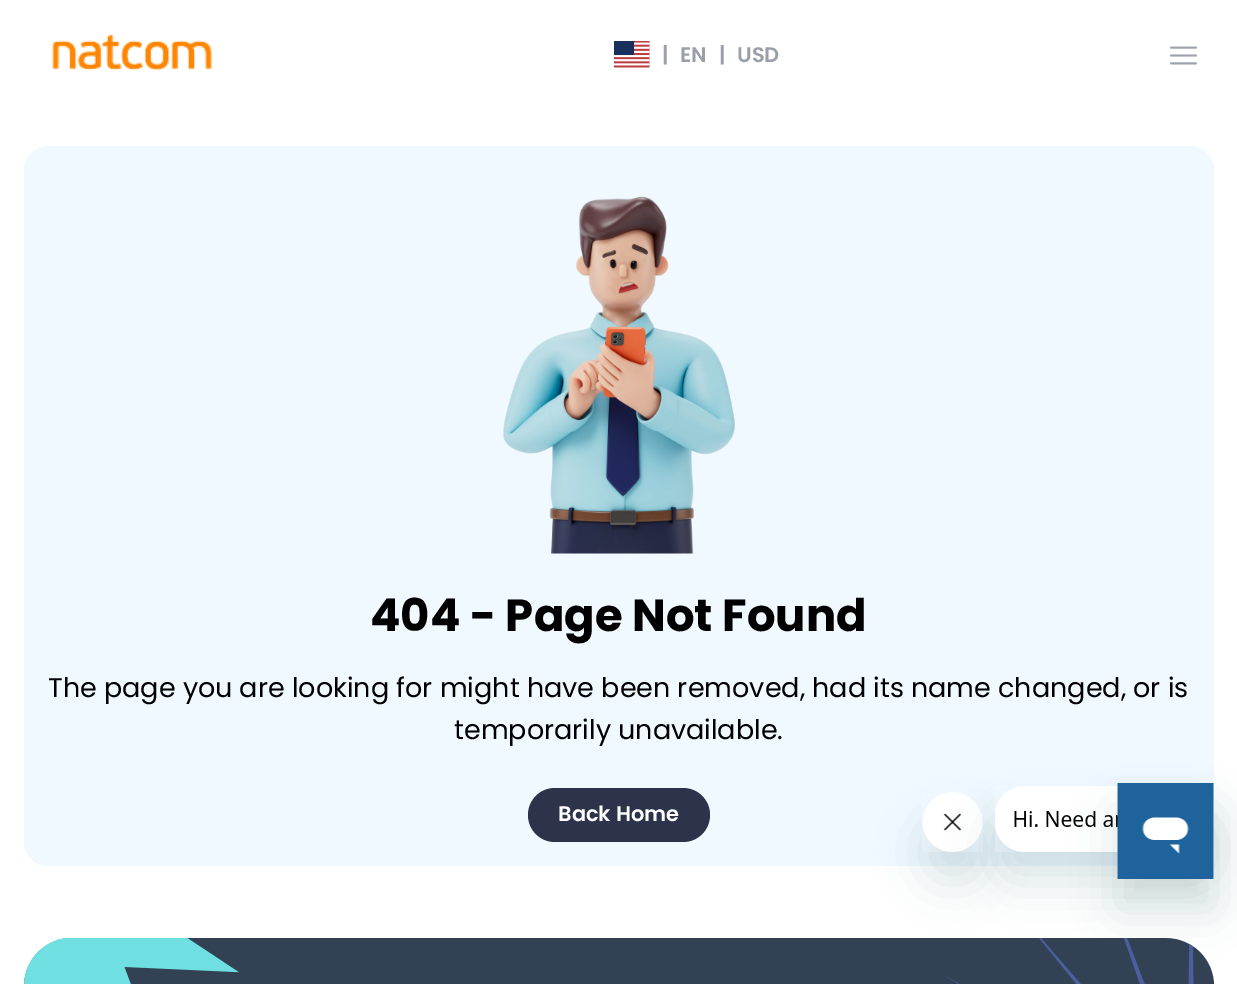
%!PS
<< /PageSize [1237 984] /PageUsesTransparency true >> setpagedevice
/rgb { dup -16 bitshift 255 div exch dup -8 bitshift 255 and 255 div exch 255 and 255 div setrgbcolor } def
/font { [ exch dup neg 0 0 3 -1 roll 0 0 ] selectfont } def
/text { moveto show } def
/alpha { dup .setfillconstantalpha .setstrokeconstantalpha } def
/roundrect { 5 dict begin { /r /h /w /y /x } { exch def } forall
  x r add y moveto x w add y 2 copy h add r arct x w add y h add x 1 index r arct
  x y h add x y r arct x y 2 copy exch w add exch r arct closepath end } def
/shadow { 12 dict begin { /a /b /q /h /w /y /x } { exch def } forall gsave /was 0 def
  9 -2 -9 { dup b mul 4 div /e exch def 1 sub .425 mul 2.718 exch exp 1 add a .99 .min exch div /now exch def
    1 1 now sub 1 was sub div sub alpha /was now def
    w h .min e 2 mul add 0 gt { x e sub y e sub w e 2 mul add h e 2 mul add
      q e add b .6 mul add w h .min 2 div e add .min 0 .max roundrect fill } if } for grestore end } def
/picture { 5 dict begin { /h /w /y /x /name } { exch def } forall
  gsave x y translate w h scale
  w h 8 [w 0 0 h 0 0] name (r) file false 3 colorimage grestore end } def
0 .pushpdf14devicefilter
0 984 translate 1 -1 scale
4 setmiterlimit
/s1 { /Poppins-SemiBold 21 font 16#99A0AA rgb } def
/s2 { /Poppins-Bold 45 font 16#000000 rgb } def
/s3 { /Poppins-Regular 27 font 16#000000 rgb } def
/s4 { /Poppins-SemiBold 21 font 16#FFFFFF rgb } def
16#FFFFFF rgb
0 0 1237 984 rectfill
(pic1.raw) 52 33 160 38 picture
(pic2.raw) 614 41 36 27 picture
s1
(|) 662 62 text
(EN) 680 62 text
(|) 719 62 text
(USD) 737 62 text
(pic3.raw) 1170 46 27 19 picture
16#F0F9FF rgb
24 146 1190 720 24 roundrect fill
(pic4.raw) 503 196 232 358 picture
s2
(404 - Page Not Found) 370 631 text
s3
(The page you are looking for might have been removed, had its name changed, or is) 48 697 text
(temporarily unavailable.) 454 739 text
16#2C334A rgb
528 788 182 54 27 roundrect fill
s4
(Back Home) 558 821 text
16#334155 rgb
24 938 1190 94 48 roundrect fill
(pic8.raw) 24 938 1170 46 picture
16#17494D rgb
923 822 60 60 30 22.5 0.15 shadow
(pic7.raw) 922 792 61 60 picture
995 816 219 66 30 22.5 0.15 shadow
(pic6.raw) 995 786 123 66 picture
1118 813 96 96 0 22.5 0.15 shadow
(pic5.raw) 1117 783 97 96 picture
.poppdf14devicefilter showpage
